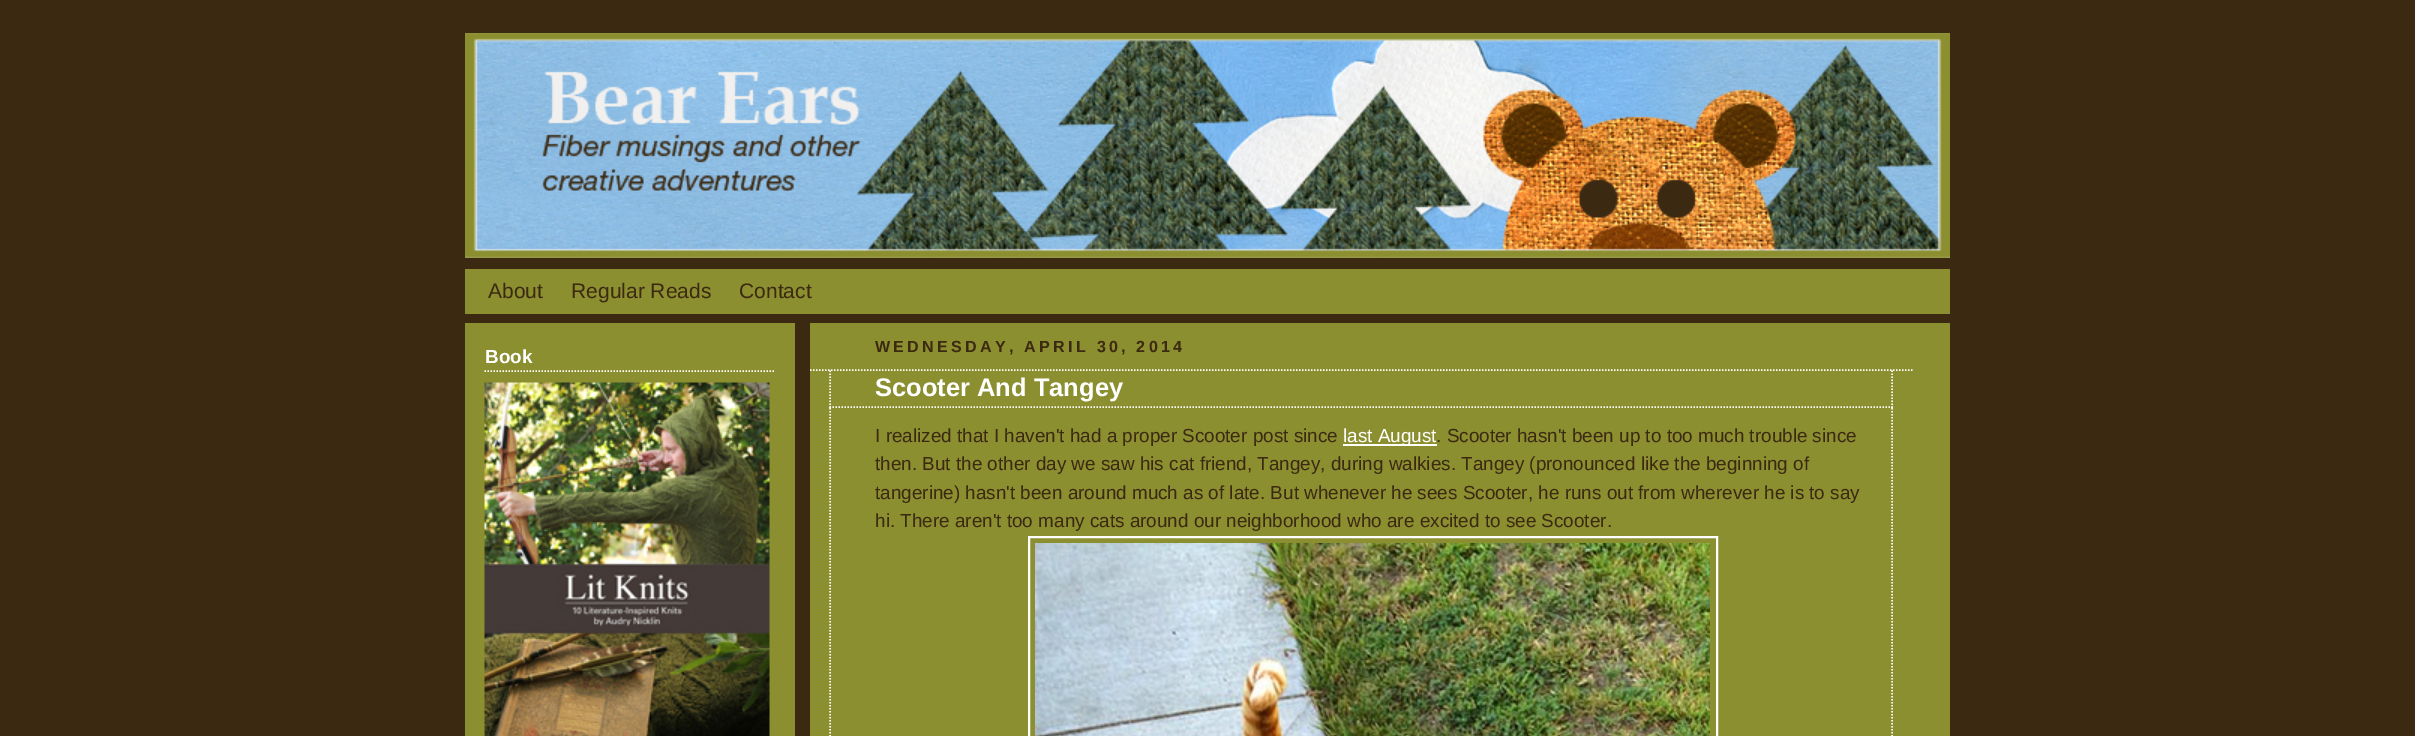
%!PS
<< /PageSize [2415 736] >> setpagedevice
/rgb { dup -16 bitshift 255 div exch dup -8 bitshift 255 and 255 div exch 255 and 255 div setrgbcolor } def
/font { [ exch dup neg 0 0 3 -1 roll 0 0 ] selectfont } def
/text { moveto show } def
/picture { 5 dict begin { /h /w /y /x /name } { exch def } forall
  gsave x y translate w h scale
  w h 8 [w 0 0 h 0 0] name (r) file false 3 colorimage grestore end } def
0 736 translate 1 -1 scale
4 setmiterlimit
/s1 { /LiberationSans-Regular 21 font 16#3B2912 rgb } def
/s2 { /LiberationSans-Bold 18.9 font 16#FFFFFF rgb } def
/s3 { /LiberationSans-Bold 25.5 font 16#FFFFFF rgb } def
/s4 { /LiberationSans-Regular 18.9 font 16#3B2912 rgb } def
/s5 { /LiberationSans-Regular 18.9 font 16#FFFFFF rgb } def
16#3B2912 rgb
0 0 2415 736 rectfill
(pic1.raw) 465 33 1485 225 picture
16#8B8F30 rgb
465 269 1485 45 rectfill
s1
(About) 488 298 text
(Regular Reads) 571 298 text
(Contact) 739 298 text
16#8B8F30 rgb
465 323 330 413 rectfill
16#FFFFFF rgb
1.5 setlinewidth
[1.5 1.5] 0 setdash
484.5 371 moveto 775.5 371 lineto stroke
s2
(Book) 485 363 text
(pic2.raw) 484 382 286 354 picture
16#8B8F30 rgb
810 323 1140 413 rectfill
/LiberationSans-Bold 16.1 font
16#3B2912 rgb
875 352 moveto 3.25 0 (WEDNESDAY, APRIL 30, 2014) ashow
16#FFFFFF rgb
810 370 moveto 1912.5 370 lineto stroke
1892 370.5 moveto 1892 408 lineto stroke
829.5 407 moveto 1893 407 lineto stroke
830 370.5 moveto 830 408 lineto stroke
s3
(Scooter And Tangey) 875 396 text
1892 408 moveto 1892 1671 lineto stroke
830 408 moveto 830 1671 lineto stroke
s4
(I realized that I haven't had a proper Scooter post since) 875 442 text
16#FFFFFF rgb
1343 444 94 2 rectfill
(last August) 1343 442 text
s4
(. Scooter hasn't been up to too much trouble since) 1436 442 text
(then. But the other day we saw his cat friend, Tangey, during walkies. Tangey \(pronounced like the beginning of) 875 470 text
(tangerine\) hasn't been around much as of late. But whenever he sees Scooter, he runs out from wherever he is to say) 875 499 text
(hi. There aren't too many cats around our neighborhood who are excited to see Scooter.) 875 527 text
16#FFFFFF rgb
2 setlinewidth
[] 0 setdash
1029 537 688 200 rectstroke
(pic3.raw) 1035 543 675 193 picture
showpage
